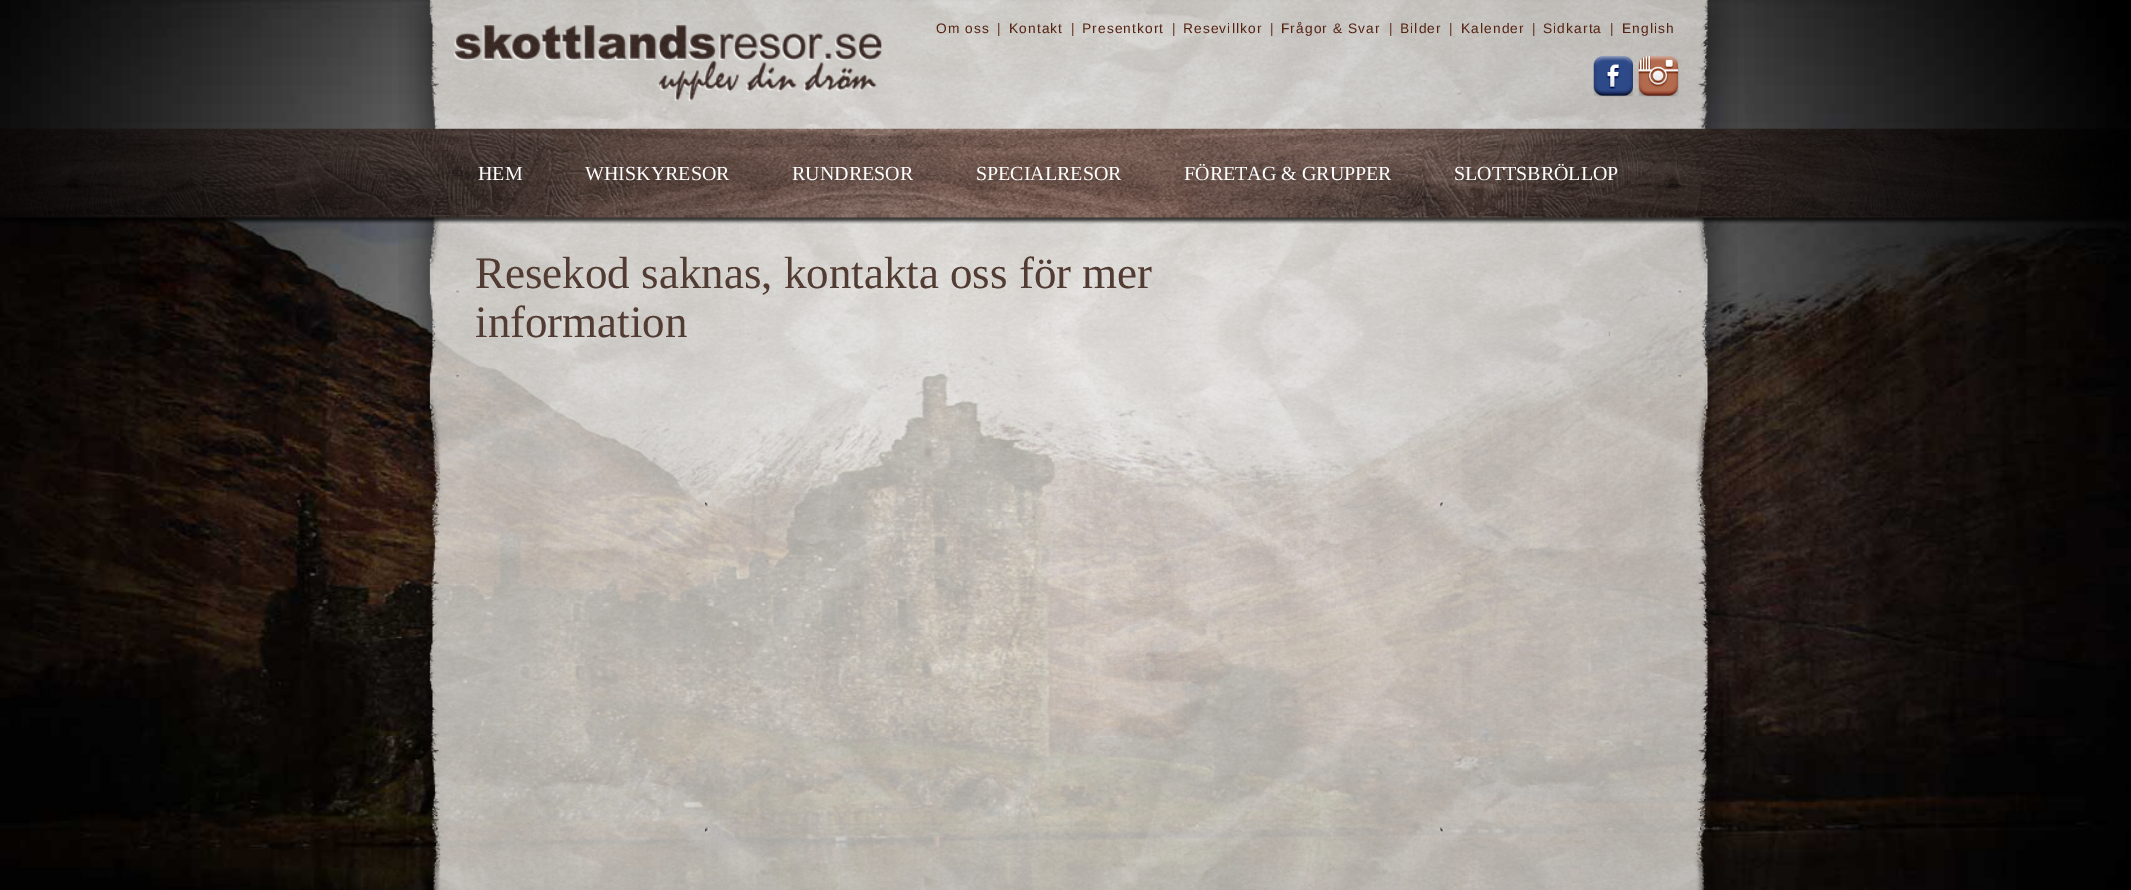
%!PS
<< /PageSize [2131 890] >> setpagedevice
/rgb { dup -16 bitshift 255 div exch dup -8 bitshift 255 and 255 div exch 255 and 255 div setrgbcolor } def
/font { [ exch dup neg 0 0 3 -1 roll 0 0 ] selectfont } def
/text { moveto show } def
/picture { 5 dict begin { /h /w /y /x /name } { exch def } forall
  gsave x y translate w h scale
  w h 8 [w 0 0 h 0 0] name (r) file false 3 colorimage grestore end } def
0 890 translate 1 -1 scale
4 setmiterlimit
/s1 { /LiberationSans-Regular 13.75 font 16#542210 rgb } def
/s2 { /LiberationSerif-Regular 20 font 16#FFFFFF rgb } def
/s3 { /LiberationSerif-Regular 45 font 16#513B32 rgb } def
16#FFFFFF rgb
0 0 2131 890 rectfill
(pic1.raw) 0 0 2131 890 picture
(pic2.raw) 398 0 1340 890 picture
(pic3.raw) 453 25 429 77 picture
/LiberationSans-Regular 13.75 font
16#542210 rgb
936 33 moveto 1.1 0 (Om oss) ashow
(|) 997 33 text
1009 33 moveto 1.1 0 (Kontakt) ashow
(|) 1071 33 text
1082 33 moveto 1.1 0 (Presentkort) ashow
(|) 1172 33 text
1183 33 moveto 1.1 0 (Resevillkor) ashow
(|) 1270 33 text
1281 33 moveto 1.1 0 (Frågor & Svar) ashow
(|) 1389 33 text
1400 33 moveto 1.1 0 (Bilder) ashow
(|) 1449 33 text
1461 33 moveto 1.1 0 (Kalender) ashow
(|) 1532 33 text
1543 33 moveto 1.1 0 (Sidkarta) ashow
(|) 1610 33 text
1622 33 moveto 1.1 0 (English) ashow
(pic4.raw) 1593 56 40 41 picture
(pic5.raw) 1638 56 41 41 picture
(pic6.raw) 0 128 2131 96 picture
s2
(HEM) 478 180 text
(WHISKYRESOR) 585 180 text
(RUNDRESOR) 792 180 text
(SPECIALRESOR) 976 180 text
(FÖRETAG & GRUPPER) 1184 180 text
(SLOTTSBRÖLLOP) 1454 180 text
s3
(Resekod saknas, kontakta oss för mer) 475 288 text
(information) 475 337 text
showpage
